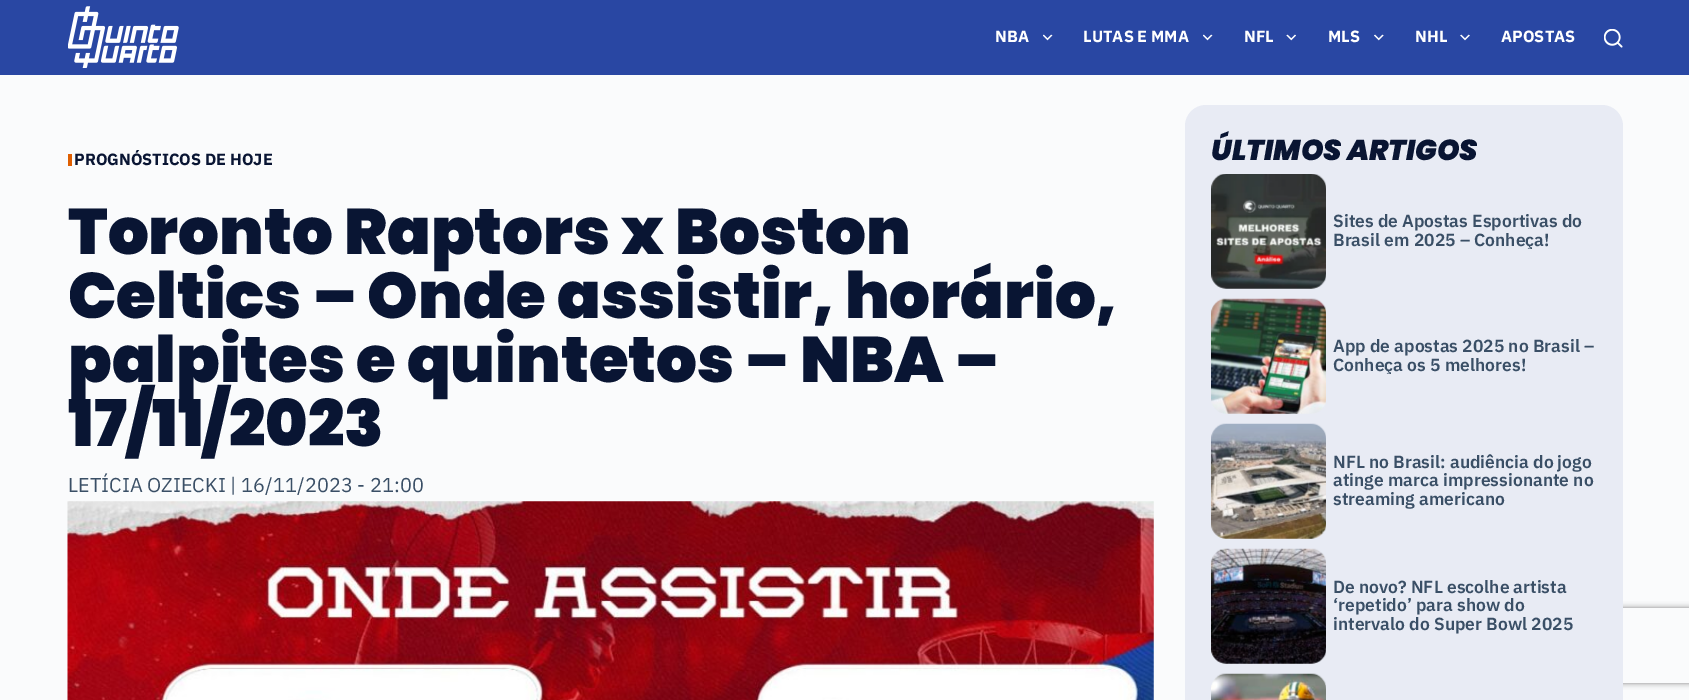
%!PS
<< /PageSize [1689 700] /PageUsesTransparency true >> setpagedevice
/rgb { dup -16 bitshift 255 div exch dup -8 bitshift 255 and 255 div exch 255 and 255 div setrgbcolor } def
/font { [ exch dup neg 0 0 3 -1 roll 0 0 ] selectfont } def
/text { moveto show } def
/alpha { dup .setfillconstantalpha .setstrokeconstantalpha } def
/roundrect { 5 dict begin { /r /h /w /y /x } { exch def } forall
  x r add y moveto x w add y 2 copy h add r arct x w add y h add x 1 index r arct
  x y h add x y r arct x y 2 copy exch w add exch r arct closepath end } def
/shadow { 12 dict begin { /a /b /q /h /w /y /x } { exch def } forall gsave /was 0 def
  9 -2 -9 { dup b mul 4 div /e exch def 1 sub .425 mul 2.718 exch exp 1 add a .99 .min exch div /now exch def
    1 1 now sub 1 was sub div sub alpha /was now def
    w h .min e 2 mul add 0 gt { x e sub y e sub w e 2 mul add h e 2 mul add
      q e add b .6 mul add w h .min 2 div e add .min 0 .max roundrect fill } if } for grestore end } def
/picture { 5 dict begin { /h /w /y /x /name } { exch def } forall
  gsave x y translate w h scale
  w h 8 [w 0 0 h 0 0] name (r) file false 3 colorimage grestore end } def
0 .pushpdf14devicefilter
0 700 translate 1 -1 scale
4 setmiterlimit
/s1 { /IBMPlexSans-Bold 16.25 font 16#FFFFFF rgb } def
/s2 { /IBMPlexSans-Bold 16.25 font 16#091533 rgb } def
/s3 { /Poppins-Black 64.25 font 16#091533 rgb } def
/s4 { /IBMPlexSans-Regular 20 font 16#3A4F66 rgb } def
/s5 { /Poppins-BlackItalic 28.75 font 16#091533 rgb } def
/s6 { /IBMPlexSans-SemiBold 17.5 font 16#3A4F66 rgb } def
16#FAFBFC rgb
0 0 1689 700 rectfill
16#2947A3 rgb
0 0 1689 75 rectfill
(pic1.raw) 68 6 111 62 picture
s1
(NBA) 995 42 text
(pic2.raw) 1043 34 10 7 picture
(LUTAS E MMA) 1083 42 text
(pic2.raw) 1203 34 10 7 picture
(NFL) 1244 42 text
(pic3.raw) 1286 34 10 7 picture
(MLS) 1328 42 text
(pic4.raw) 1374 34 10 7 picture
(NHL) 1415 42 text
(pic5.raw) 1460 34 10 7 picture
(APOSTAS) 1501 42 text
(pic6.raw) 1604 29 19 19 picture
16#DF5F02 rgb
68 154 4 12 rectfill
gsave
68 150 1086 25 rectclip
s2
(PROGNÓSTICOS DE HOJE) 74 165 text
grestore
s3
(Toronto Raptors x Boston) 68 254 text
(Celtics – Onde assistir, horário,) 68 318 text
(palpites e quintetos – NBA –) 68 382 text
(17/11/2023) 68 446 text
s4
(LETÍCIA OZIECKI | 16/11/2023 - 21:00) 68 492 text
(pic7.raw) 67 501 1087 199 picture
gsave
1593 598 moveto 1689 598 lineto 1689 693 lineto 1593 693 lineto closepath 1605.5 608 moveto 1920.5 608 lineto 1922 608 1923 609 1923 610.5 curveto 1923 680.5 lineto 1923 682 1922 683 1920.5 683 curveto 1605.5 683 lineto 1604 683 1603 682 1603 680.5 curveto 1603 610.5 lineto 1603 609 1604 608 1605.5 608 curveto closepath eoclip newpath
16#808080 rgb
1603 608 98 75 2.5 3 1 shadow
grestore
16#E8EBF4 rgb
1185 105 438 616 21 roundrect fill
s5
(ÚLTIMOS ARTIGOS) 1211 160 text
(pic8.raw) 1211 174 115 115 picture
s6
(Sites de Apostas Esportivas do) 1333 227 text
gsave
1326 213 270 36 rectclip
(Brasil em 2025 – Conheça!) 1333 246 text
grestore
(pic9.raw) 1211 298 115 116 picture
(App de apostas 2025 no Brasil –) 1333 352 text
gsave
1326 338 270 36 rectclip
(Conheça os 5 melhores!) 1333 371 text
grestore
(pic10.raw) 1211 423 115 116 picture
(NFL no Brasil: audiência do jogo) 1333 468 text
(atinge marca impressionante no) 1333 486 text
(streaming americano) 1333 505 text
(pic11.raw) 1211 548 115 116 picture
(De novo? NFL escolhe artista) 1333 593 text
(‘repetido’ para show do) 1333 611 text
(intervalo do Super Bowl 2025) 1333 630 text
(pic12.raw) 1211 673 115 27 picture
.poppdf14devicefilter showpage
